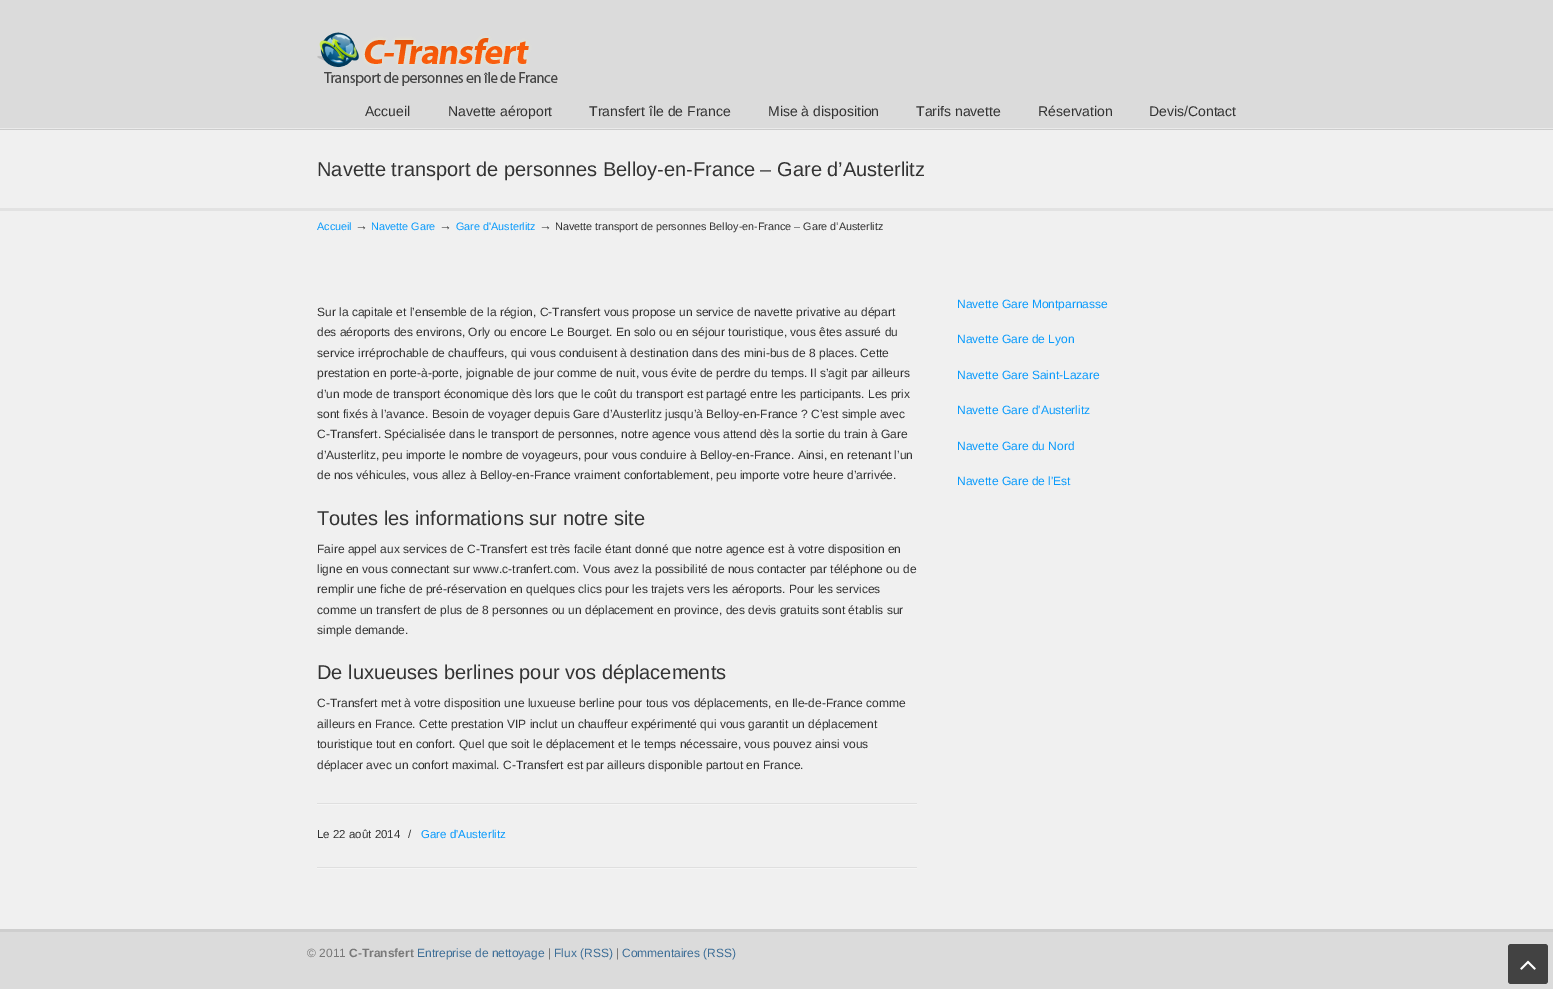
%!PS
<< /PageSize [1553 989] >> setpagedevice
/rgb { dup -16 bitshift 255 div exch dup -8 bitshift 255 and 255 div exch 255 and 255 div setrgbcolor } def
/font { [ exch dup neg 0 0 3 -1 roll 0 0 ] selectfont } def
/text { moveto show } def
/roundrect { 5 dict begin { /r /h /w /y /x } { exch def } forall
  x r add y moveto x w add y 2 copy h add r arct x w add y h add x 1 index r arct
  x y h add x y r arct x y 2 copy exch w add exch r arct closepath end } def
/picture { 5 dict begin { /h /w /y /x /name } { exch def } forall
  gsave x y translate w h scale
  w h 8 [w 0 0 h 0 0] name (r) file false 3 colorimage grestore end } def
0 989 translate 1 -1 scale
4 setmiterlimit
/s1 { /LiberationSans-Regular 14 font 16#333333 rgb } def
/s2 { /LiberationSans-Regular 20 font 16#333333 rgb } def
/s3 { /LiberationSans-Regular 10.8 font 16#0A9BFC rgb } def
/s4 { /LiberationSans-Regular 13 font 16#333333 rgb } def
/s5 { /LiberationSans-Regular 10.8 font 16#333333 rgb } def
/s6 { /LiberationSans-Regular 12 font 16#333333 rgb } def
/s7 { /LiberationSans-Regular 11.5 font 16#333333 rgb } def
/s8 { /LiberationSans-Regular 11.5 font 16#0A9BFC rgb } def
/s9 { /LiberationSans-Regular 12 font 16#0A9BFC rgb } def
/s10 { /LiberationSans-Regular 12 font 16#797979 rgb } def
/s11 { /LiberationSans-Bold 12 font 16#797979 rgb } def
/s12 { /LiberationSans-Regular 12 font 16#3D6E97 rgb } def
16#DBDBDB rgb
0 0 1553 989 rectfill
(pic1.raw) 317 32 241 54 picture
s1
(Accueil) 365 116 text
(Navette aéroport) 448 116 text
(Transfert île de France) 589 116 text
(Mise à disposition) 768 116 text
(Tarifs navette) 916 116 text
(Réservation) 1038 116 text
(Devis/Contact) 1149 116 text
(pic2.raw) 0 128 1553 2 picture
16#F0F0F0 rgb
0 130 1553 78 rectfill
s2
(Navette transport de personnes Belloy-en-France – Gare d’Austerlitz) 317 176 text
16#F0F0F0 rgb
0 211 1553 718 rectfill
16#E2E2E2 rgb
0 208 1553 3 rectfill
s3
(Accueil) 317 230 text
s4
(→) 355 230 text
s3
(Navette Gare) 371 230 text
s4
(→) 439 230 text
s3
(Gare d'Austerlitz) 456 230 text
s4
(→) 539 230 text
s5
(Navette transport de personnes Belloy-en-France – Gare d’Austerlitz) 555 230 text
s6
(Sur la capitale et l’ensemble de la région, C-Transfert vous propose un service de navette privative au départ) 317 316 text
(des aéroports des environs, Orly ou encore Le Bourget. En solo ou en séjour touristique, vous êtes assuré du) 317 336 text
(service irréprochable de chauffeurs, qui vous conduisent à destination dans des mini-bus de 8 places. Cette) 317 357 text
(prestation en porte-à-porte, joignable de jour comme de nuit, vous évite de perdre du temps. Il s’agit par ailleurs) 317 377 text
(d’un mode de transport économique dès lors que le coût du transport est partagé entre les participants. Les prix) 317 398 text
(sont fixés à l’avance. Besoin de voyager depuis Gare d’Austerlitz jusqu’à Belloy-en-France ? C’est simple avec) 317 418 text
(C-Transfert. Spécialisée dans le transport de personnes, notre agence vous attend dès la sortie du train à Gare) 317 438 text
(d’Austerlitz, peu importe le nombre de voyageurs, pour vous conduire à Belloy-en-France. Ainsi, en retenant l’un) 317 459 text
(de nos véhicules, vous allez à Belloy-en-France vraiment confortablement, peu importe votre heure d’arrivée.) 317 479 text
s2
(Toutes les informations sur notre site) 317 525 text
s6
(Faire appel aux services de C-Transfert est très facile étant donné que notre agence est à votre disposition en) 317 553 text
(ligne en vous connectant sur www.c-tranfert.com. Vous avez la possibilité de nous contacter par téléphone ou de) 317 573 text
(remplir une fiche de pré-réservation en quelques clics pour les trajets vers les aéroports. Pour les services) 317 593 text
(comme un transfert de plus de 8 personnes ou un déplacement en province, des devis gratuits sont établis sur) 317 614 text
(simple demande.) 317 634 text
s2
(De luxueuses berlines pour vos déplacements) 317 679 text
s6
(C-Transfert met à votre disposition une luxueuse berline pour tous vos déplacements, en Ile-de-France comme) 317 707 text
(ailleurs en France. Cette prestation VIP inclut un chauffeur expérimenté qui vous garantit un déplacement) 317 728 text
(touristique tout en confort. Quel que soit le déplacement et le temps nécessaire, vous pouvez ainsi vous) 317 748 text
(déplacer avec un confort maximal. C-Transfert est par ailleurs disponible partout en France.) 317 769 text
(pic3.raw) 317 803 600 2 picture
s7
(Le 22 août 2014) 317 838 text
(/) 408 838 text
s8
(Gare d'Austerlitz) 421 838 text
(pic3.raw) 317 867 600 2 picture
s9
(Navette Gare Montparnasse) 957 308 text
(Navette Gare de Lyon) 957 343 text
(Navette Gare Saint-Lazare) 957 379 text
(Navette Gare d'Austerlitz) 957 414 text
(Navette Gare du Nord) 957 450 text
(Navette Gare de l'Est) 957 485 text
16#CECECE rgb
0 929 1553 3 rectfill
s10
(© 2011) 307 957 text
s11
(C-Transfert) 349 957 text
s12
(Entreprise de nettoyage) 417 957 text
s10
(|) 548 957 text
s12
(Flux \(RSS\)) 554 957 text
s10
(|) 616 957 text
s12
(Commentaires \(RSS\)) 622 957 text
16#424242 rgb
1508 944 40 40 3 roundrect fill
(pic4.raw) 1520 960 16 10 picture
showpage
